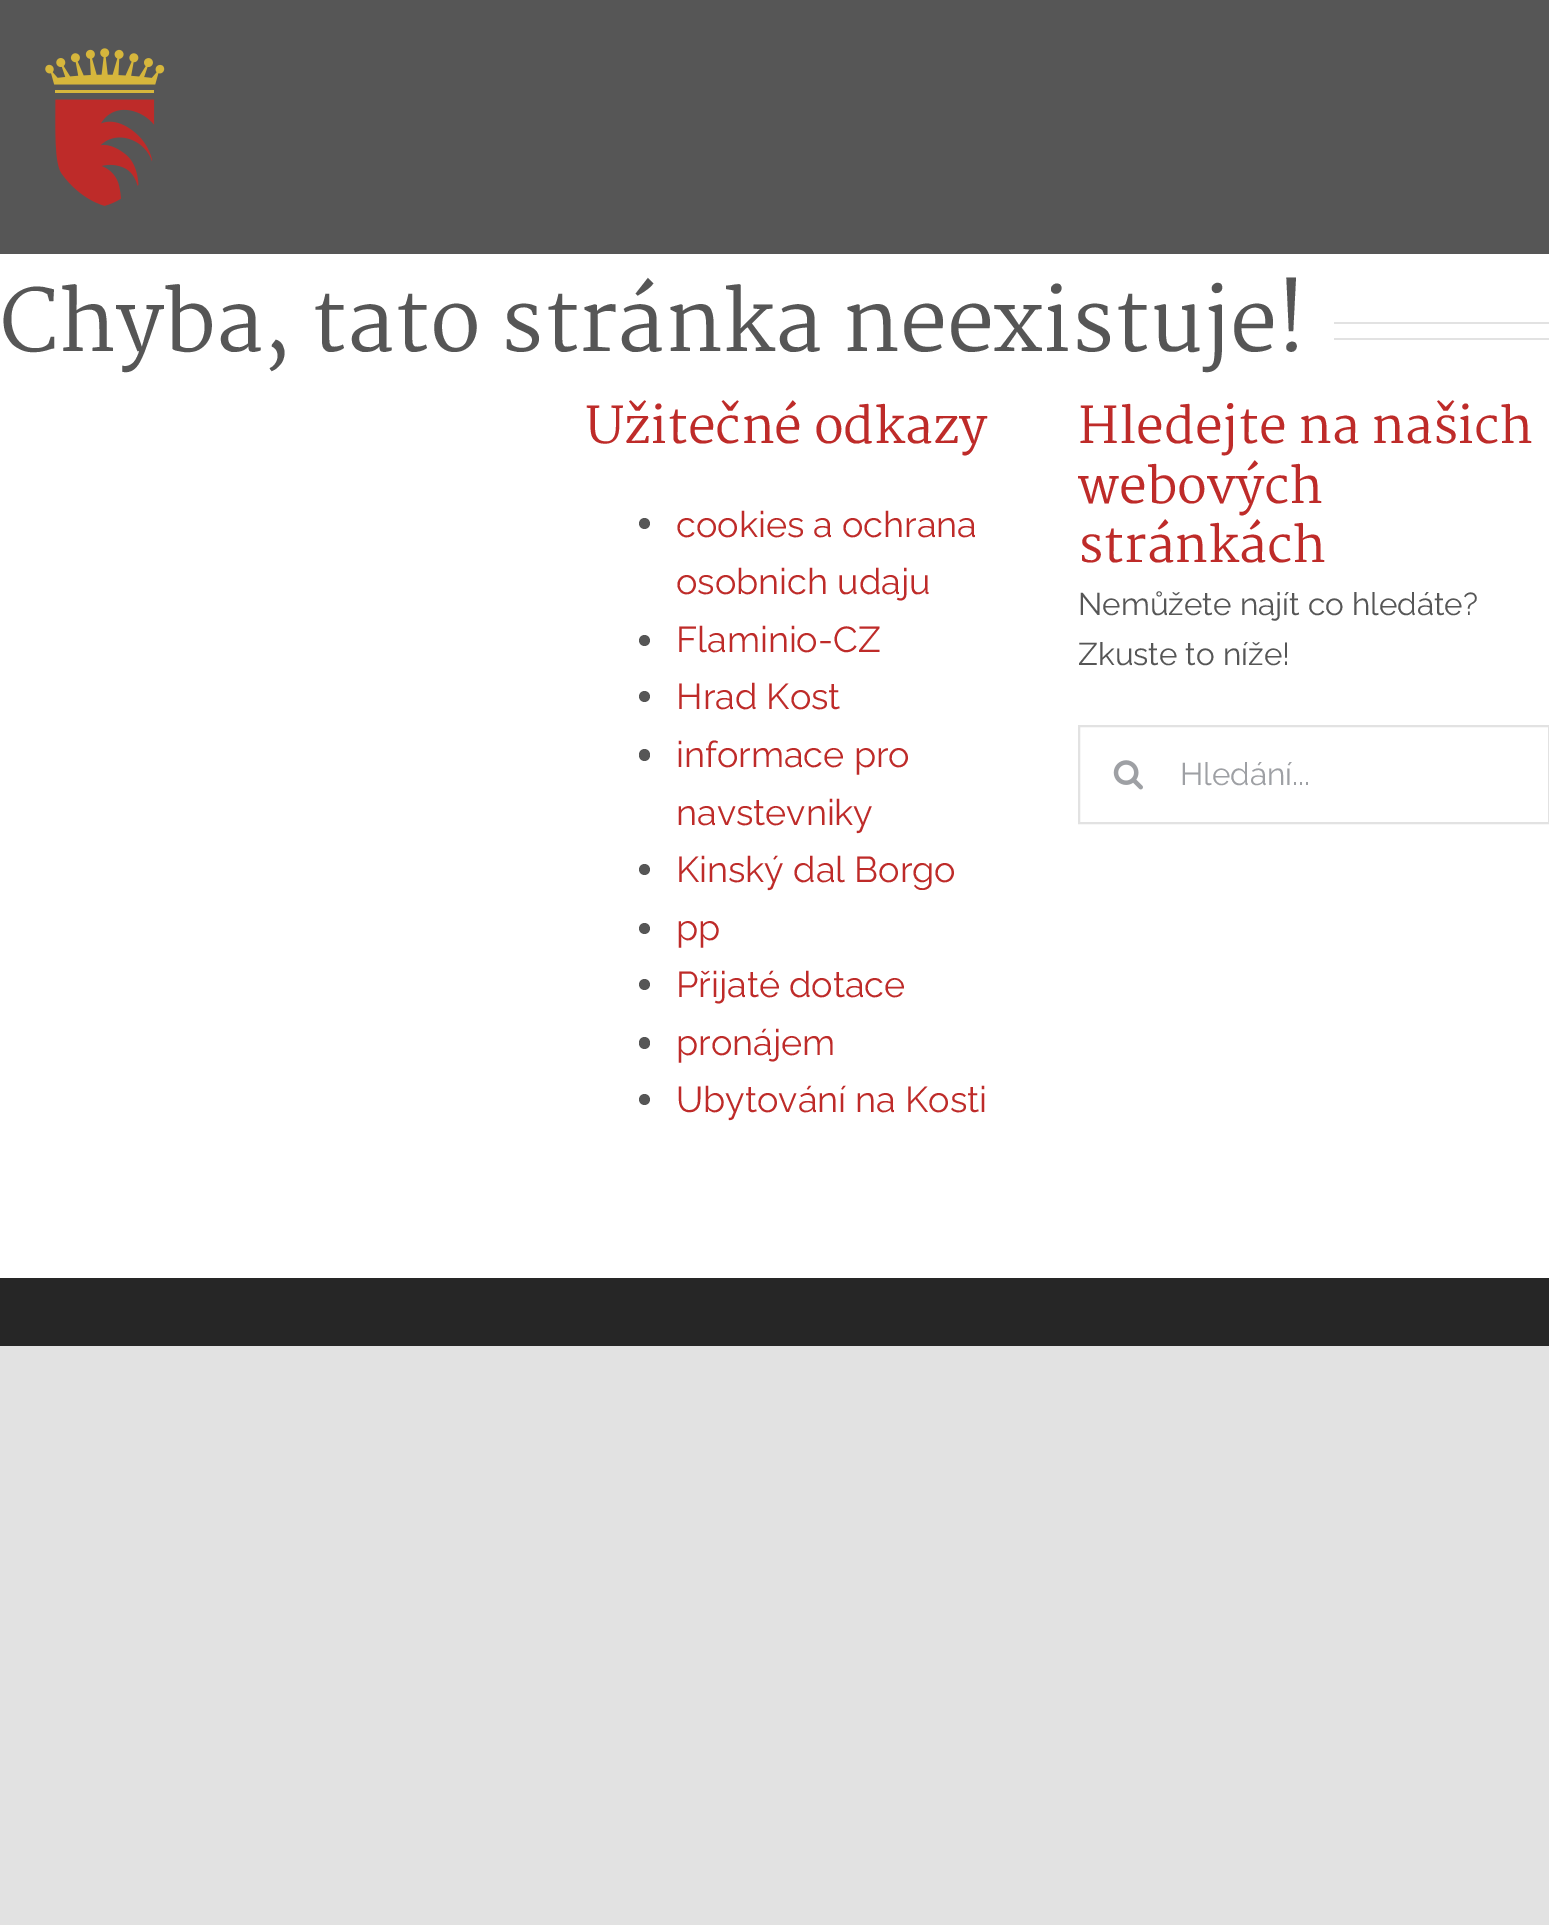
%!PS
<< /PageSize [1549 1925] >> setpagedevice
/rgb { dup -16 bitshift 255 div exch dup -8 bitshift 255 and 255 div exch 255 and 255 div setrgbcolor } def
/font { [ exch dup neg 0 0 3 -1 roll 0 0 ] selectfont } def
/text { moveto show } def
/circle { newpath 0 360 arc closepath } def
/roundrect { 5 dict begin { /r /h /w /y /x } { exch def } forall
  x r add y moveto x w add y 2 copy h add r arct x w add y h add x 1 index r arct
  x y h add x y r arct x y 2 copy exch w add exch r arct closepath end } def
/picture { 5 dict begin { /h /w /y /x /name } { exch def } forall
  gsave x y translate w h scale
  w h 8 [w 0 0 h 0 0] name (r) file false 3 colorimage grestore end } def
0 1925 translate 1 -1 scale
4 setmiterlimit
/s1 { /Martel-Regular 84.5 font 16#565656 rgb } def
/s2 { /Martel-Regular 49.5 font 16#BE2B29 rgb } def
/s3 { /Raleway-Regular 36 font 16#BE2B29 rgb } def
/s4 { /Raleway-Regular 31.5 font 16#565656 rgb } def
/s5 { /Raleway-Regular 31.5 font 16#9EA0A4 rgb } def
16#E2E2E2 rgb
0 0 1549 1925 rectfill
16#FFFFFF rgb
0 254 1549 1024 rectfill
16#565656 rgb
0 0 1549 254 rectfill
(pic1.raw) 45 48 120 158 picture
s1
(Chyba, tato stránka neexistuje!) 0 351 text
16#E2E2E2 rgb
1334 322 215 2 rectfill
1334 338 215 2 rectfill
s2
(Užitečné odkazy) 586 443 text
16#565656 rgb
644.5 523.5 5.5 circle fill
s3
(cookies a ochrana) 676 537 text
(osobnich udaju) 676 594 text
16#565656 rgb
644.5 640.5 5.5 circle fill
s3
(Flaminio-CZ) 676 652 text
16#565656 rgb
644.5 696.5 5.5 circle fill
s3
(Hrad Kost) 676 709 text
16#565656 rgb
639 749 11 12 5.5 roundrect fill
s3
(informace pro) 676 767 text
(navstevniky) 676 825 text
16#565656 rgb
644.5 869.5 5.5 circle fill
s3
(Kinský dal Borgo) 676 882 text
16#565656 rgb
644.5 928.5 5.5 circle fill
s3
(pp) 676 940 text
16#565656 rgb
644.5 984.5 5.5 circle fill
s3
(Přijaté dotace) 676 997 text
16#565656 rgb
639 1037 11 12 5.5 roundrect fill
s3
(pronájem) 676 1055 text
16#565656 rgb
644.5 1099.5 5.5 circle fill
s3
(Ubytování na Kosti) 676 1112 text
s2
(Hledejte na našich) 1078 443 text
(webových) 1078 503 text
(stránkách) 1078 562 text
s4
(Nemůžete najít co hledáte?) 1078 615 text
(Zkuste to níže!) 1078 665 text
16#E2E2E2 rgb
2 setlinewidth
1079 726 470 97 rectstroke
(pic2.raw) 1113 760 30 30 picture
s5
(Hledání...) 1180 785 text
16#262626 rgb
0 1278 1549 68 rectfill
showpage
